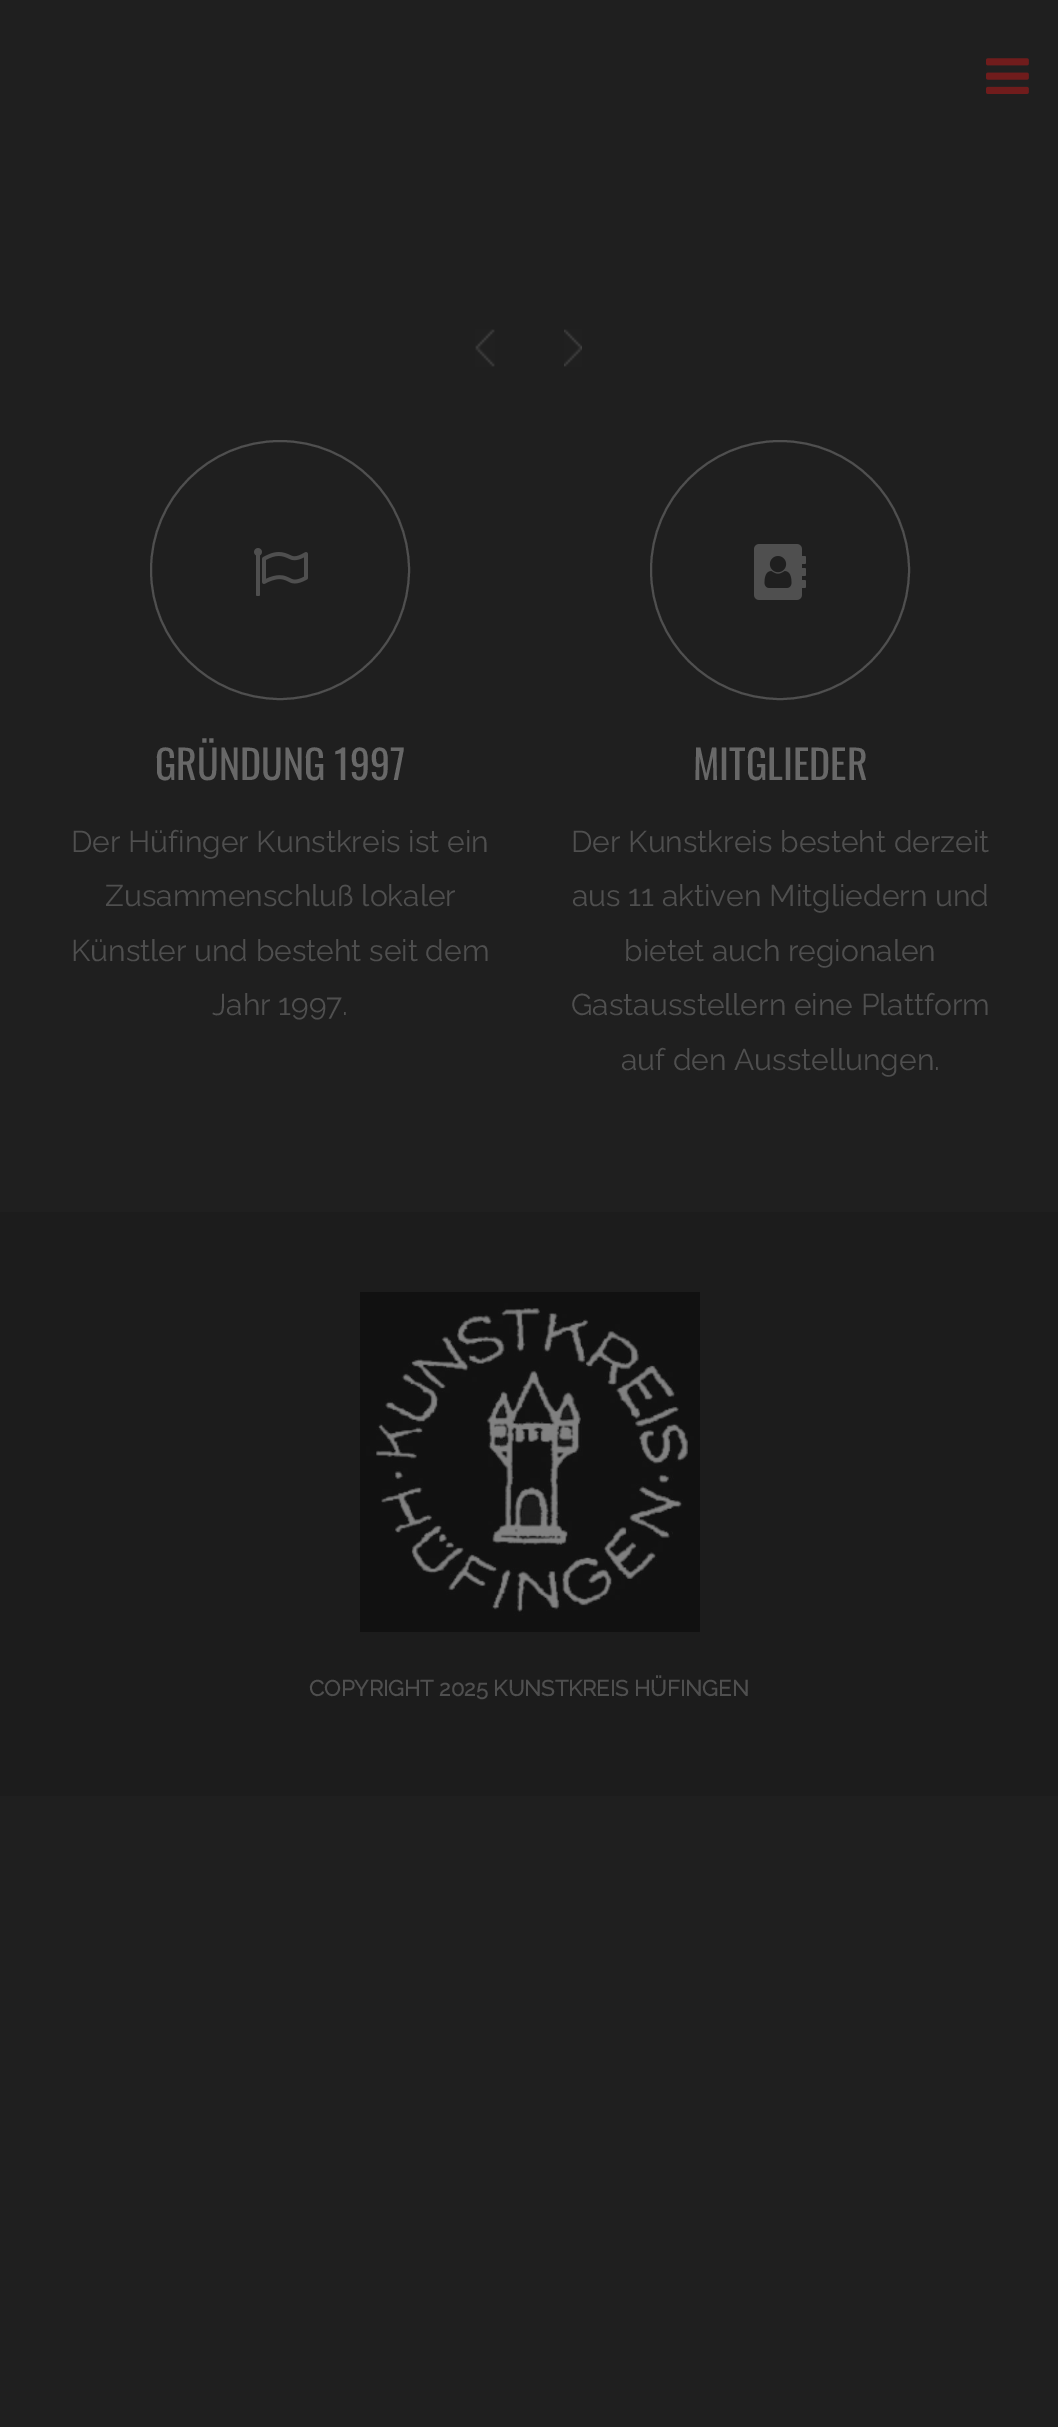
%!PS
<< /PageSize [1058 2427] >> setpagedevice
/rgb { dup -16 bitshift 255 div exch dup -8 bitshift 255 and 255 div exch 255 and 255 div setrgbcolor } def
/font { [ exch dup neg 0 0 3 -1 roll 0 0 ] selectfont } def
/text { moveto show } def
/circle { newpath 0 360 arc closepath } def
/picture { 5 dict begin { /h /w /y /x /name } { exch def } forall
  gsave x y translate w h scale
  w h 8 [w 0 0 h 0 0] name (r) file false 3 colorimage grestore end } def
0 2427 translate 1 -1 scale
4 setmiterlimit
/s1 { /Oswald-Regular 40 font 16#686868 rgb } def
/s2 { /Raleway-Thin 30 font 16#4F4F4F rgb } def
/s3 { /Raleway-Bold 22 font 16#4F4F4F rgb } def
16#1F1F1F rgb
0 0 1058 2427 rectfill
(pic1.raw) 986 58 43 36 picture
(pic2.raw) 475 329 20 38 picture
(pic3.raw) 564 329 18 38 picture
16#4F4F4F rgb
2 setlinewidth
280 570 129 circle stroke
(pic4.raw) 254 548 54 48 picture
s1
(GRÜNDUNG 1997) 155 780 text
s2
(Der Hüfinger Kunstkreis ist ein) 71 852 text
(Zusammenschluß lokaler) 105 906 text
(Künstler und besteht seit dem) 71 961 text
(Jahr 1997.) 212 1015 text
780 570 129 circle stroke
(pic5.raw) 754 544 52 56 picture
s1
(MITGLIEDER) 693 780 text
s2
(Der Kunstkreis besteht derzeit) 571 852 text
(aus 11 aktiven Mitgliedern und) 572 906 text
(bietet auch regionalen) 624 961 text
(Gastausstellern eine Plattform) 571 1015 text
(auf den Ausstellungen.) 621 1070 text
16#1C1C1C rgb
0 1212 1058 584 rectfill
(pic6.raw) 360 1292 340 340 picture
s3
(COPYRIGHT 2025 KUNSTKREIS HÜFINGEN) 309 1696 text
showpage
